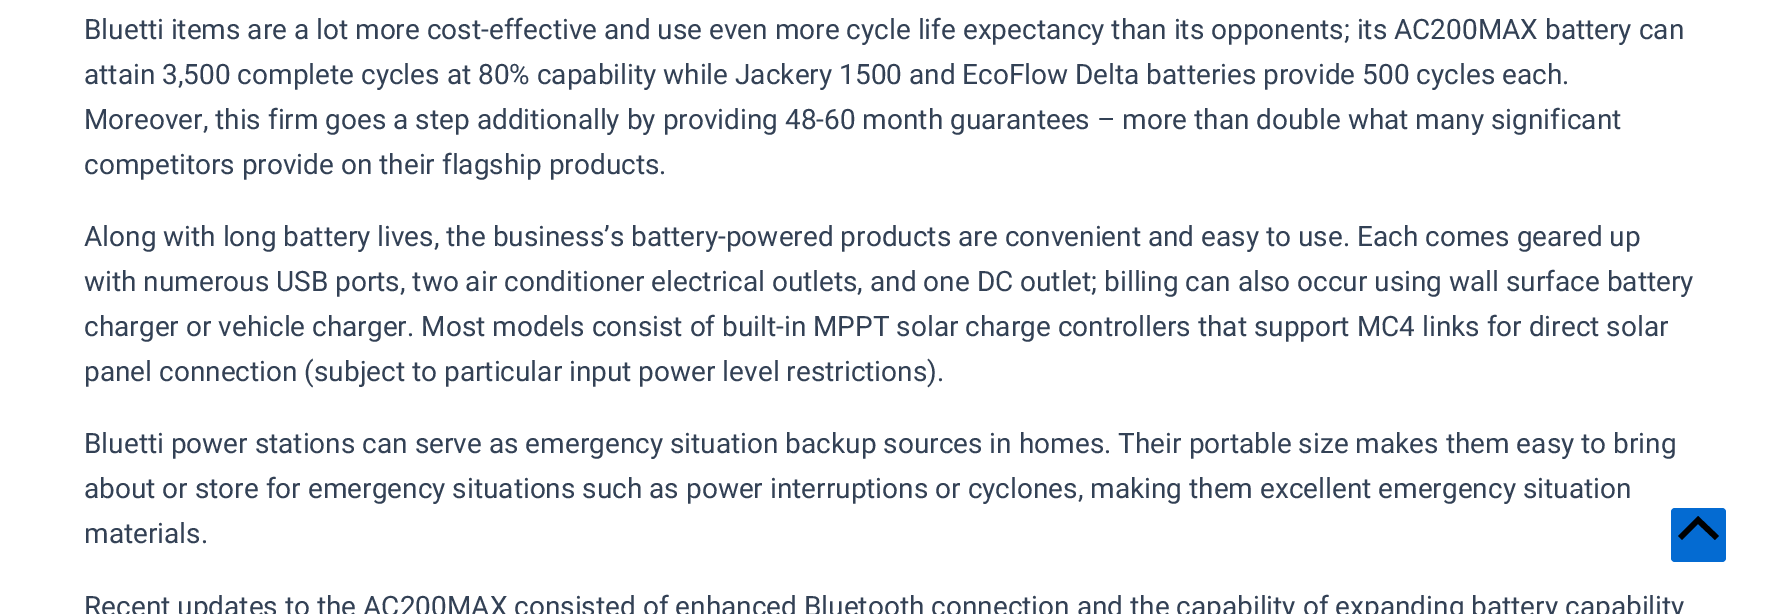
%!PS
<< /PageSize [1777 614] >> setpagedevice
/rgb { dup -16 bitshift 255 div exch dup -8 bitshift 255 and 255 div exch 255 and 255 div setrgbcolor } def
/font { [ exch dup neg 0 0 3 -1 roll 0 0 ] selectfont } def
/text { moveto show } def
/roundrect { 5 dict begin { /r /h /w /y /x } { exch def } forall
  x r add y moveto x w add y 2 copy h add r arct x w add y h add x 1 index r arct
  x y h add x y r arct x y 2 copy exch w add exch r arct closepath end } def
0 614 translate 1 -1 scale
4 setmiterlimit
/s1 { /Roboto-Regular 28 font 16#334155 rgb } def
16#FFFFFF rgb
0 0 1777 614 rectfill
s1
(Bluetti items are a lot more cost-effective and use even more cycle life expectancy than its opponents; its AC200MAX battery can) 84 39 text
(attain 3,500 complete cycles at 80% capability while Jackery 1500 and EcoFlow Delta batteries provide 500 cycles each.) 84 84 text
(Moreover, this firm goes a step additionally by providing 48-60 month guarantees – more than double what many significant) 84 129 text
(competitors provide on their flagship products.) 84 174 text
(Along with long battery lives, the business’s battery-powered products are convenient and easy to use. Each comes geared up) 84 246 text
(with numerous USB ports, two air conditioner electrical outlets, and one DC outlet; billing can also occur using wall surface battery) 84 291 text
(charger or vehicle charger. Most models consist of built-in MPPT solar charge controllers that support MC4 links for direct solar) 84 336 text
(panel connection \(subject to particular input power level restrictions\).) 84 381 text
(Bluetti power stations can serve as emergency situation backup sources in homes. Their portable size makes them easy to bring) 84 453 text
(about or store for emergency situations such as power interruptions or cyclones, making them excellent emergency situation) 84 498 text
(materials.) 84 543 text
(Recent updates to the AC200MAX consisted of enhanced Bluetooth connection and the capability of expanding battery capability) 84 616 text
16#046BD2 rgb
1671 508 55 54 4 roundrect fill
16#000000 rgb
1719 536 moveto 1698 516 lineto 1678 536 lineto 1682 540 lineto 1698 524 lineto 1715 540 lineto closepath fill
showpage
